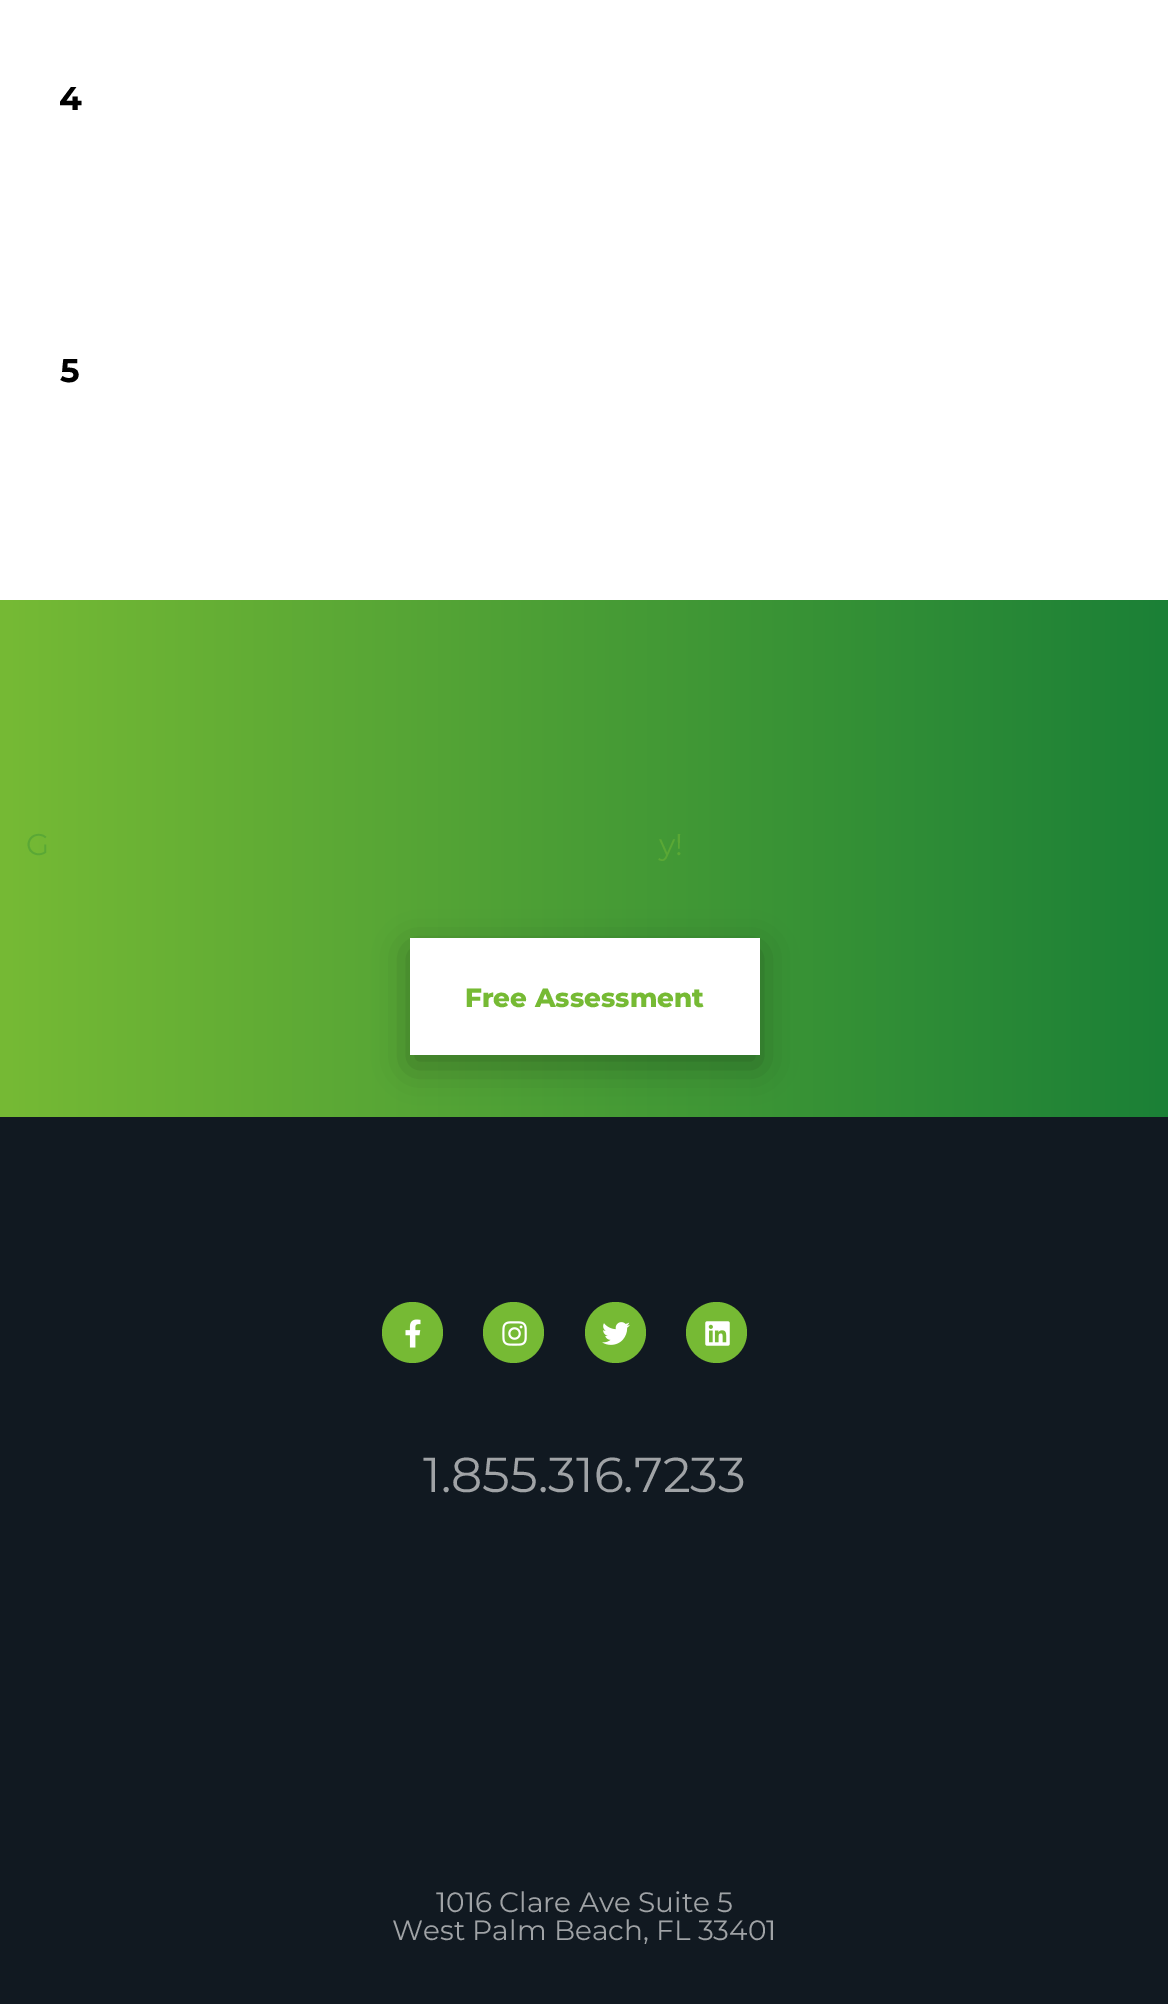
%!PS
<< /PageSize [1168 2004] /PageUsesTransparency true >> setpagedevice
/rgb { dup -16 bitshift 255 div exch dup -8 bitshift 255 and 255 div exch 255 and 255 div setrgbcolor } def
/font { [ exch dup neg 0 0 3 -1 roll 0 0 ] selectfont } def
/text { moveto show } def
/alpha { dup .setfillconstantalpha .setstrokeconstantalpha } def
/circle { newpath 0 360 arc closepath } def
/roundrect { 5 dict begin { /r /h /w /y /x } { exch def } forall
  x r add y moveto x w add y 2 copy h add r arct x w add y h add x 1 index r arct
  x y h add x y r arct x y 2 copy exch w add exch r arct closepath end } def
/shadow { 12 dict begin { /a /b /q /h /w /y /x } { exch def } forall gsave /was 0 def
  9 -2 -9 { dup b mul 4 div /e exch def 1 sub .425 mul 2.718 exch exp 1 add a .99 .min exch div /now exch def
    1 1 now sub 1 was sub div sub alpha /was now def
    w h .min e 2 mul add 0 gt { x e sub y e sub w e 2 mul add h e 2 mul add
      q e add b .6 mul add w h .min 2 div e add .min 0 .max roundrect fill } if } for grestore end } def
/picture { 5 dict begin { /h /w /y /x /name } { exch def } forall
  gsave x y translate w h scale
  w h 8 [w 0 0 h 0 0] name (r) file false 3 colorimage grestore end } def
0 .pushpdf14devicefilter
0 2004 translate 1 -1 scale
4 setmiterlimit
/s1 { /Montserrat-Bold 33 font 16#000000 rgb } def
/s2 { /Montserrat-Regular 30 font 16#5AA835 rgb } def
/s3 { /Montserrat-ExtraBold 26.25 font 16#76BA34 rgb } def
/s4 { /Montserrat-Regular 49 font 16#A0A3A6 rgb } def
/s5 { /Montserrat-Regular 28 font 16#A0A3A6 rgb } def
16#FFFFFF rgb
0 0 1168 2004 rectfill
s1
(4) 59 110 text
(5) 60 382 text
gsave 0 600 moveto 1168 600 lineto 1168 1117 lineto 0 1117 lineto closepath clip newpath
<< /ShadingType 2 /ColorSpace /DeviceRGB /Coords [0 858 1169 858] /Extend [true true] /Function << /FunctionType 2 /Domain [0 1] /C0 [0.463 0.729 0.204] /C1 [0.106 0.502 0.212] /N 1 >> >> shfill grestore
s2
(G) 26 855 text
(y!) 659 855 text
16#111921 rgb
0 1117 1168 887 rectfill
16#000000 rgb
410 949 350 117 0 17.5 0.28 shadow
16#FFFFFF rgb
410 938 350 117 rectfill
s3
(Free Assessment) 465 1007 text
412.5 1332.5 30.5 circle fill
(pic1.raw) 405 1319 16 29 picture
513.5 1332.5 30.5 circle fill
(pic2.raw) 502 1321 25 25 picture
615.5 1332.5 30.5 circle fill
(pic3.raw) 602 1322 28 23 picture
716.5 1332.5 30.5 circle fill
(pic4.raw) 705 1321 25 25 picture
s4
(1.855.316.7233) 423 1492 text
s5
(1016 Clare Ave Suite 5) 436 1912 text
(West Palm Beach, FL 33401) 392 1940 text
.poppdf14devicefilter showpage
